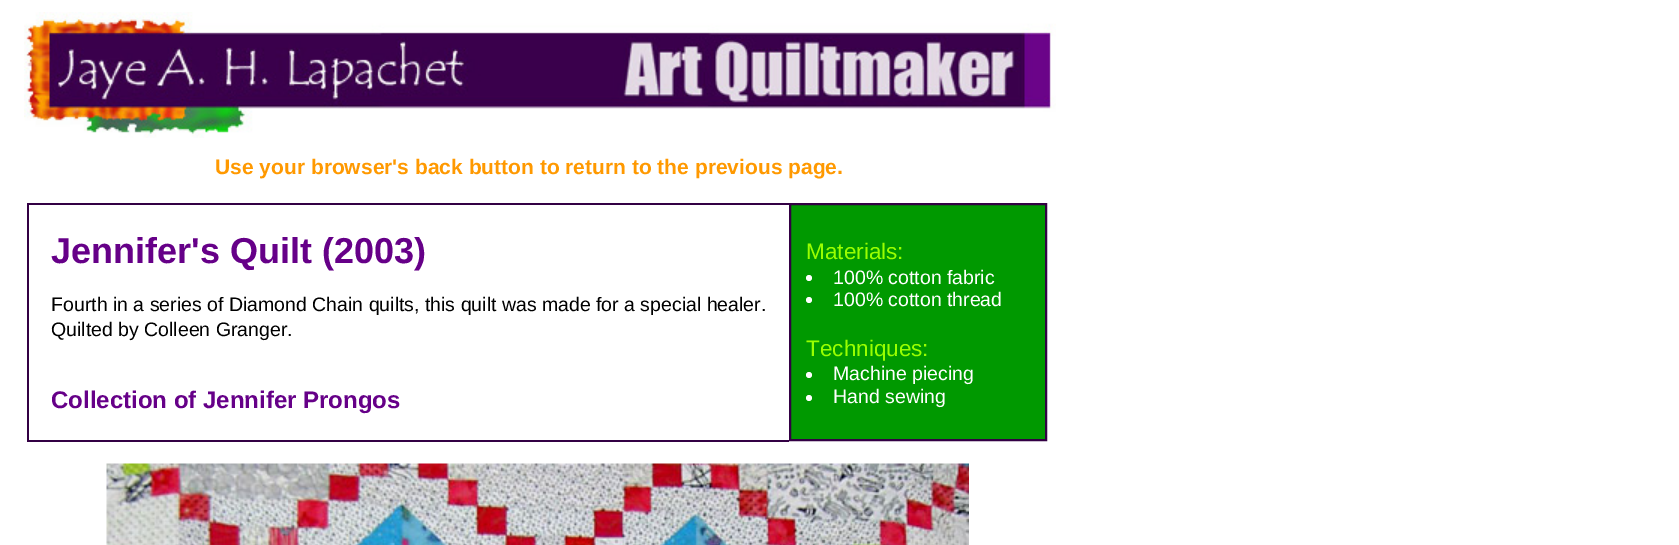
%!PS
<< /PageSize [1679 545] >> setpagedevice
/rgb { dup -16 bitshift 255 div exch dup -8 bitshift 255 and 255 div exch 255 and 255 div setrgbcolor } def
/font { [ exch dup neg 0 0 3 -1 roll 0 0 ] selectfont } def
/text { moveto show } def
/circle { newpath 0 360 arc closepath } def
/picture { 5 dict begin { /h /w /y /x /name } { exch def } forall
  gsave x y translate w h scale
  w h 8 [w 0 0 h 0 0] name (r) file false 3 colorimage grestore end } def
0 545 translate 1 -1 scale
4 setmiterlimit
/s1 { /LiberationSans-Bold 21 font 16#FF9900 rgb } def
/s2 { /LiberationSans-Bold 36 font 16#660088 rgb } def
/s3 { /LiberationSans-Regular 19.5 font 16#000000 rgb } def
/s4 { /LiberationSans-Bold 24 font 16#660088 rgb } def
/s5 { /LiberationSans-Regular 22.5 font 16#99FF00 rgb } def
/s6 { /LiberationSans-Regular 19.5 font 16#FFFFFF rgb } def
16#FFFFFF rgb
0 0 1679 545 rectfill
(pic1.raw) 24 12 1032 126 picture
s1
(Use your browser's back button to return to the previous page.) 215 174 text
16#330044 rgb
27 203 762 2 rectfill
27 440 762 2 rectfill
27 203 2 238 rectfill
s2
(Jennifer's Quilt \(2003\)) 51 263 text
s3
(Fourth in a series of Diamond Chain quilts, this quilt was made for a special healer.) 51 311 text
(Quilted by Colleen Granger.) 51 336 text
s4
(Collection of Jennifer Prongos) 51 408 text
16#009900 rgb
790 204 moveto 1046 204 lineto 1046 440 lineto 790 440 lineto closepath gsave fill grestore
16#330044 rgb
2 setlinewidth
stroke
s5
(Materials:) 806 259 text
16#FFFFFF rgb
809 278 3 circle fill
s6
(100% cotton fabric) 833 284 text
809 300 3 circle fill
(100% cotton thread) 833 306 text
s5
(Techniques:) 806 356 text
16#FFFFFF rgb
809 375 3 circle fill
s6
(Machine piecing) 833 380 text
809 398 3 circle fill
(Hand sewing) 833 403 text
(pic2.raw) 106 463 863 82 picture
showpage
